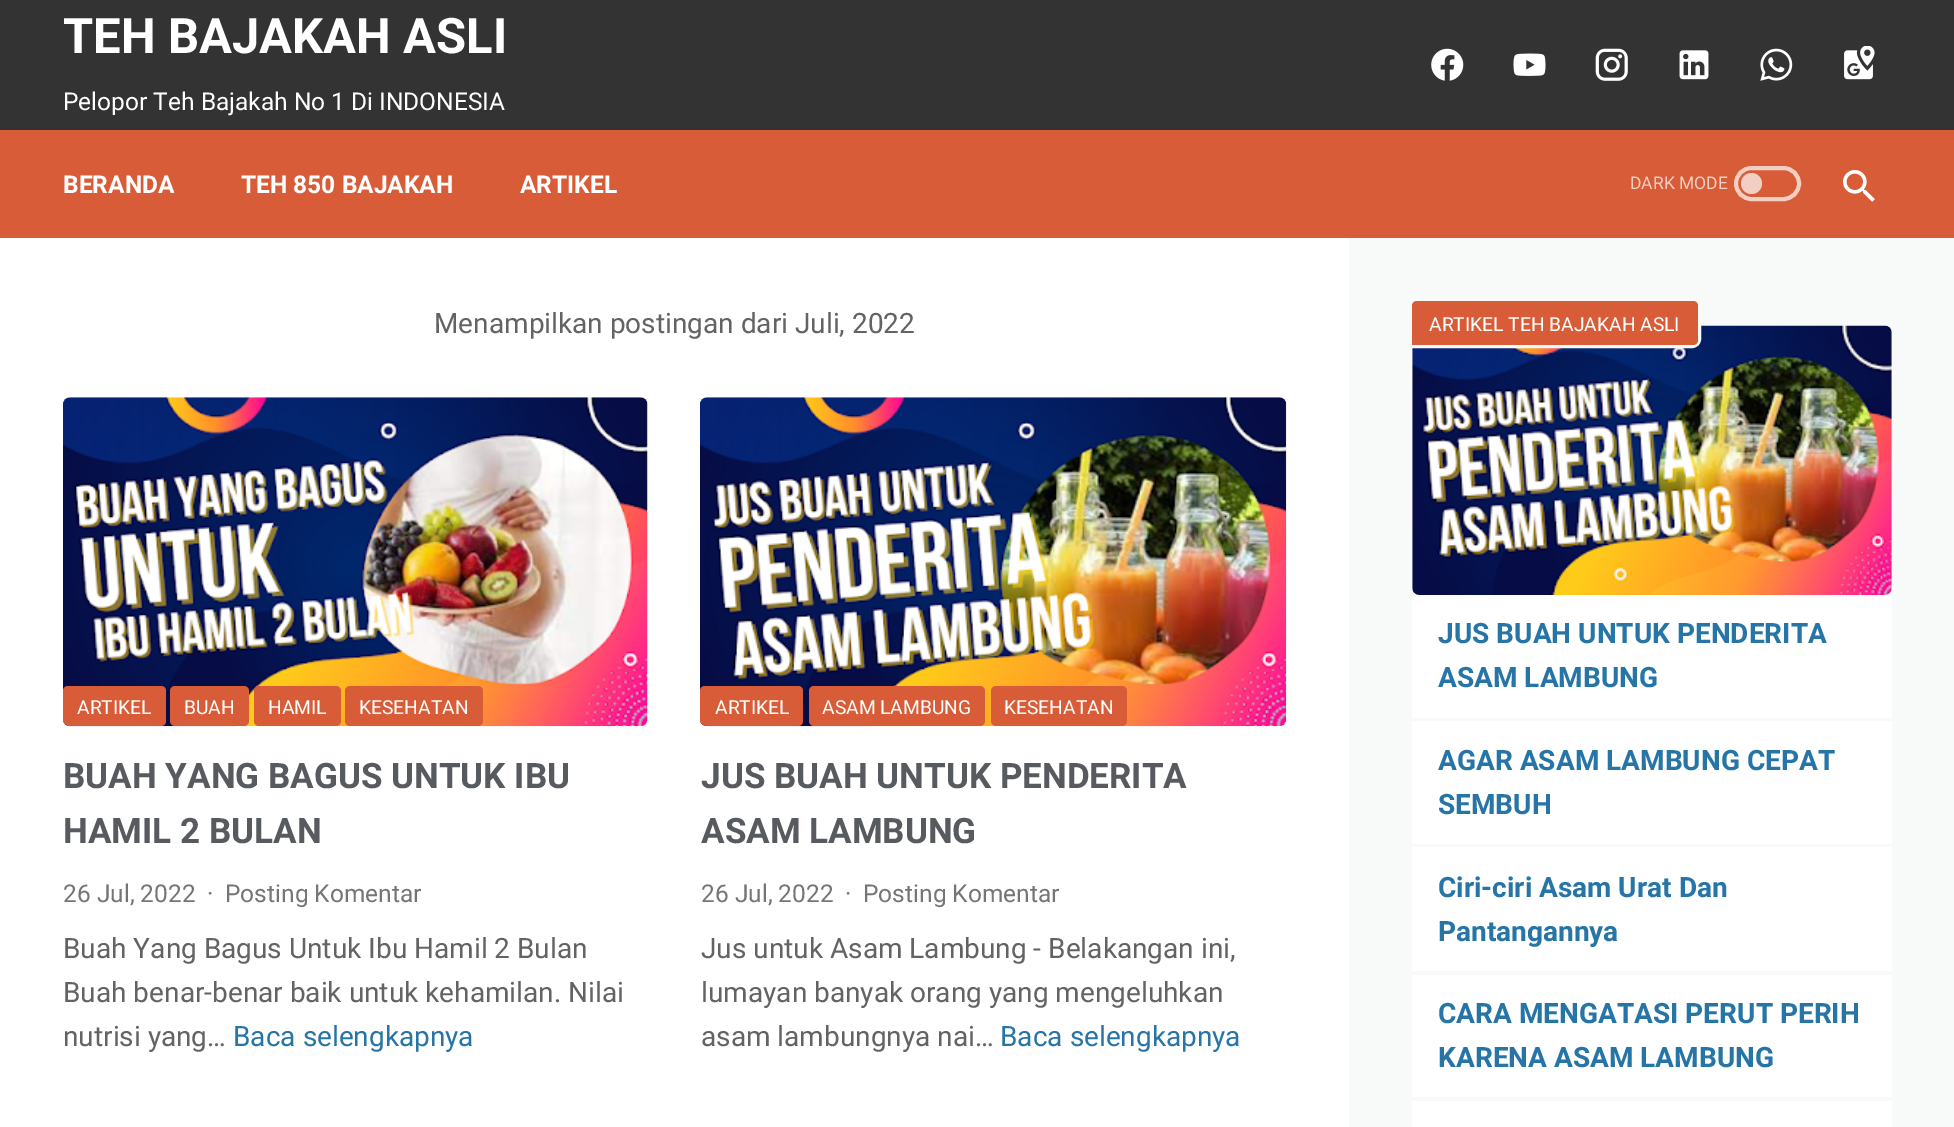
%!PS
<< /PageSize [1954 1127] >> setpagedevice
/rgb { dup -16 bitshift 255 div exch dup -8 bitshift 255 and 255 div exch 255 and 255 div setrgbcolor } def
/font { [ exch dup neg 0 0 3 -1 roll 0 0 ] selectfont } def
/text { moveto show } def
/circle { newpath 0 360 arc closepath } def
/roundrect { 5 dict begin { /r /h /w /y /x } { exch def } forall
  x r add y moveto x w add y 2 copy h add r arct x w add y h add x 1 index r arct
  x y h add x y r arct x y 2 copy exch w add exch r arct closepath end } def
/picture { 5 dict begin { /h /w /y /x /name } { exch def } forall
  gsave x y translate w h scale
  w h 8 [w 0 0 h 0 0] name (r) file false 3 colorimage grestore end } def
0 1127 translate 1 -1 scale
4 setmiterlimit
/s1 { /Roboto-Bold 49 font 16#FFFFFF rgb } def
/s2 { /Roboto-Regular 24.5 font 16#FFFFFF rgb } def
/s3 { /Roboto-Bold 24.5 font 16#FFFFFF rgb } def
/s4 { /Roboto-Regular 17.5 font 16#F3CEC3 rgb } def
/s5 { /Roboto-Regular 28 font 16#636363 rgb } def
/s6 { /Roboto-Regular 19.25 font 16#FFFFFF rgb } def
/s7 { /Roboto-Bold 35 font 16#575A5F rgb } def
/s8 { /Roboto-Regular 24.5 font 16#757575 rgb } def
/s9 { /Roboto-Regular 28 font 16#2675A6 rgb } def
/s10 { /Roboto-Bold 28 font 16#2675A6 rgb } def
16#D75C37 rgb
0 0 1954 1127 rectfill
16#333333 rgb
0 0 1954 130 rectfill
s1
(TEH BAJAKAH ASLI) 63 53 text
s2
(Pelopor Teh Bajakah No 1 Di INDONESIA) 63 110 text
(pic1.raw) 1431 48 33 33 picture
(pic2.raw) 1513 53 33 23 picture
(pic3.raw) 1595 48 33 33 picture
(pic4.raw) 1679 50 30 30 picture
(pic5.raw) 1760 48 33 33 picture
(pic6.raw) 1844 46 31 34 picture
s3
(BERANDA) 63 193 text
(TEH 850 BAJAKAH) 241 193 text
(ARTIKEL) 520 193 text
s4
(DARK MODE) 1630 189 text
4 setlinewidth
1736 168 63 31 15.5 roundrect stroke
1751.5 183.5 10.5 circle fill
(pic7.raw) 1843 170 32 32 picture
16#FFFFFF rgb
0 238 1349 889 rectfill
s5
(Menampilkan postingan dari Juli, 2022) 434 333 text
(pic8.raw) 63 397 585 330 picture
16#D75C37 rgb
68 686 moveto 161 686 lineto 164 686 166 688 166 691 curveto 166 721 lineto 166 724 164 726 161 726 curveto 70 726 lineto 66 726 63 723 63 719 curveto 63 691 lineto 63 688 65 686 68 686 curveto closepath fill
s6
(ARTIKEL) 77 714 text
16#D75C37 rgb
170 686 79 40 5 roundrect fill
s6
(BUAH) 184 714 text
16#D75C37 rgb
254 686 87 40 5 roundrect fill
s6
(HAMIL) 268 714 text
16#D75C37 rgb
345 686 138 40 5 roundrect fill
s6
(KESEHATAN) 359 714 text
s7
(BUAH YANG BAGUS UNTUK IBU) 63 788 text
(HAMIL 2 BULAN) 63 843 text
s8
(26 Jul, 2022) 63 902 text
(·) 207 902 text
(Posting Komentar) 225 902 text
s5
(Buah Yang Bagus Untuk Ibu Hamil 2 Bulan) 63 958 text
(Buah benar-benar baik untuk kehamilan. Nilai) 63 1002 text
(nutrisi yang…) 63 1046 text
s9
(Baca selengkapnya) 233 1046 text
(pic9.raw) 700 397 587 330 picture
16#D75C37 rgb
705 686 moveto 798 686 lineto 801 686 803 688 803 691 curveto 803 721 lineto 803 724 801 726 798 726 curveto 707 726 lineto 703 726 700 723 700 719 curveto 700 691 lineto 700 688 702 686 705 686 curveto closepath fill
s6
(ARTIKEL) 715 714 text
16#D75C37 rgb
809 686 176 40 5 roundrect fill
s6
(ASAM LAMBUNG) 822 714 text
16#D75C37 rgb
991 686 136 40 5 roundrect fill
s6
(KESEHATAN) 1004 714 text
s7
(JUS BUAH UNTUK PENDERITA) 701 788 text
(ASAM LAMBUNG) 701 843 text
s8
(26 Jul, 2022) 701 902 text
(·) 845 902 text
(Posting Komentar) 863 902 text
s5
(Jus untuk Asam Lambung - Belakangan ini,) 701 958 text
(lumayan banyak orang yang mengeluhkan) 701 1002 text
(asam lambungnya nai…) 701 1046 text
s9
(Baca selengkapnya) 1000 1046 text
16#F8FAFA rgb
1349 238 605 889 rectfill
(pic10.raw) 1412 325 480 270 picture
1418 300 moveto 1692 300 lineto 1696 300 1699 303 1699 307 curveto 1699 339 lineto 1699 343 1696 346 1692 346 curveto 1411 346 lineto 1411 307 lineto 1411 303 1414 300 1418 300 curveto closepath stroke
16#D75C37 rgb
1417 301 moveto 1693 301 lineto 1696 301 1698 303 1698 306 curveto 1698 340 lineto 1698 343 1696 345 1693 345 curveto 1412 345 lineto 1412 306 lineto 1412 303 1414 301 1417 301 curveto closepath fill
s6
(ARTIKEL TEH BAJAKAH ASLI) 1429 331 text
1412 595 480 123 rectfill
s10
(JUS BUAH UNTUK PENDERITA) 1438 643 text
(ASAM LAMBUNG) 1438 687 text
16#FFFFFF rgb
1412 721 480 123 rectfill
s10
(AGAR ASAM LAMBUNG CEPAT) 1438 770 text
(SEMBUH) 1438 814 text
16#FFFFFF rgb
1412 847 480 124 rectfill
s10
(Ciri-ciri Asam Urat Dan) 1438 897 text
(Pantangannya) 1438 941 text
16#FFFFFF rgb
1412 975 480 122 rectfill
s10
(CARA MENGATASI PERUT PERIH) 1438 1023 text
(KARENA ASAM LAMBUNG) 1438 1067 text
16#FFFFFF rgb
1412 1101 480 26 rectfill
showpage
